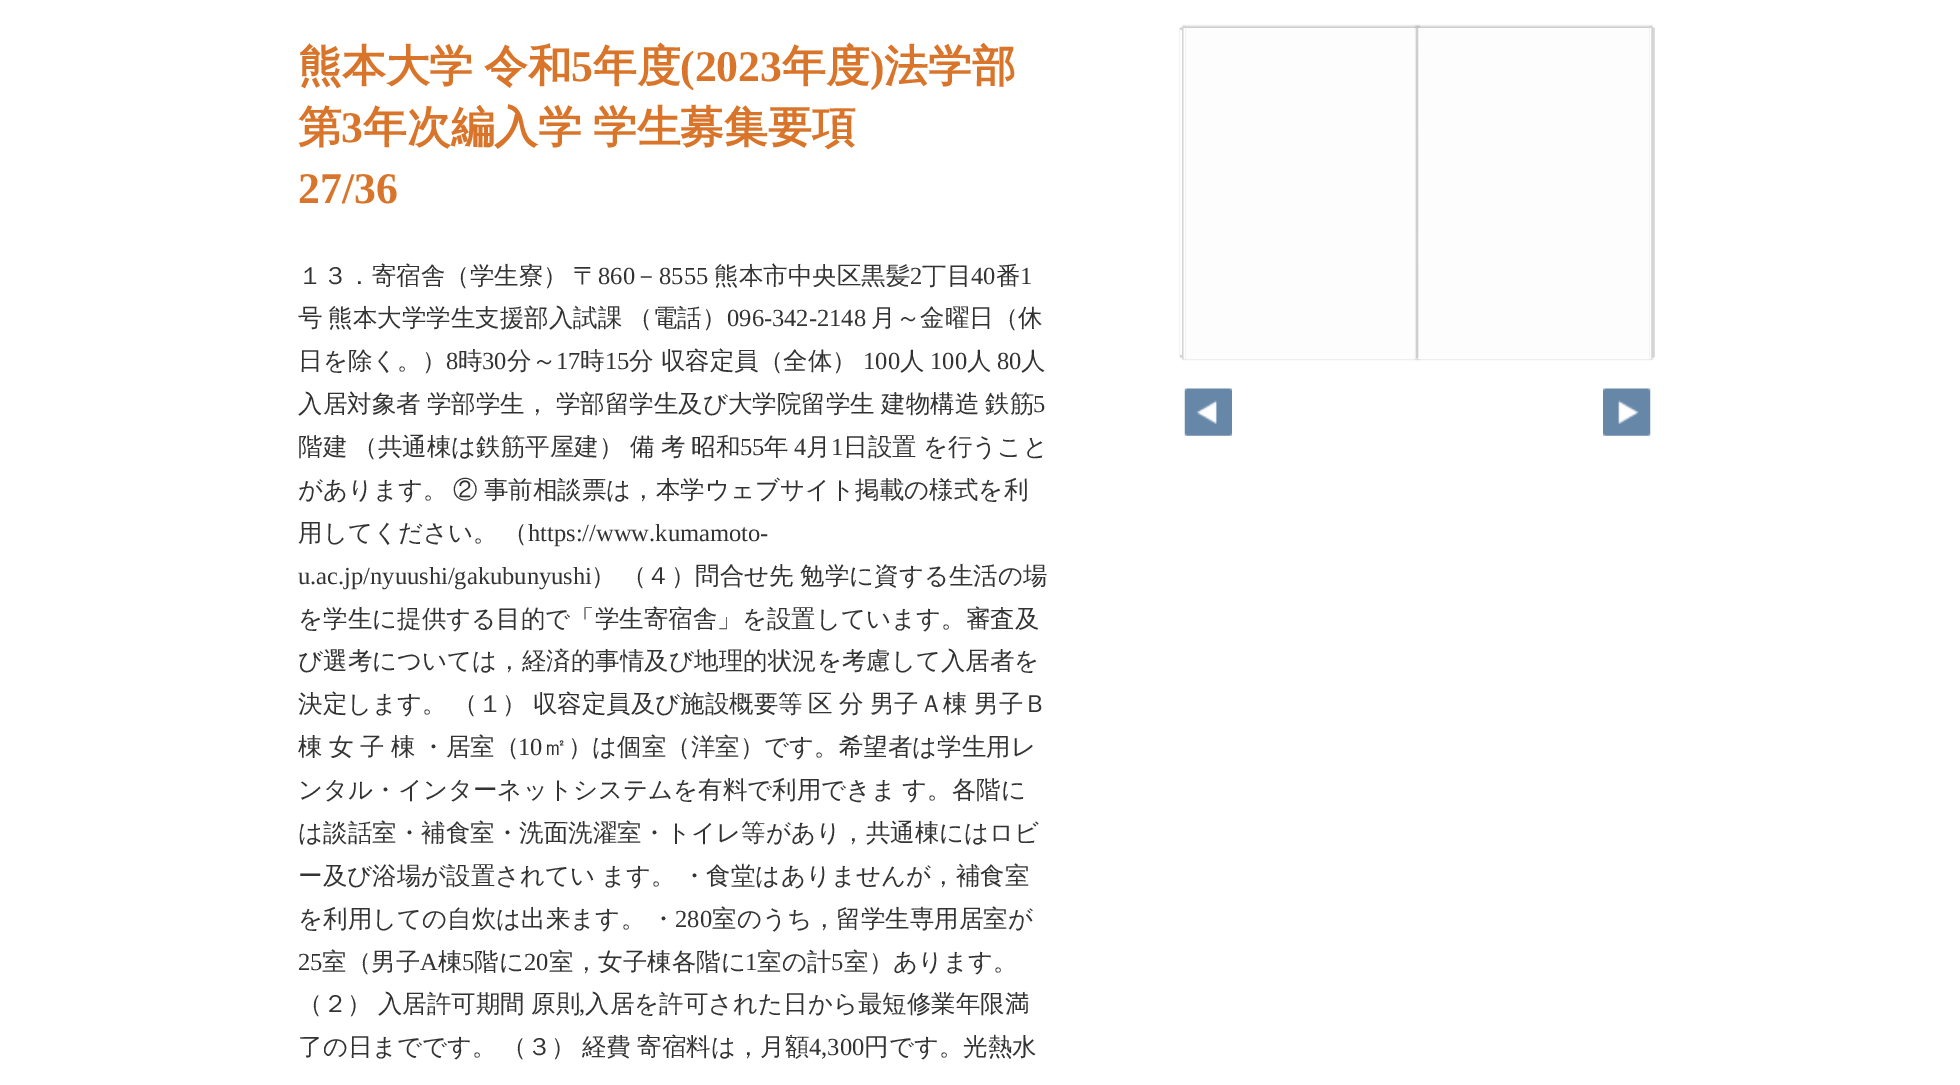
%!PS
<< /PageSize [1960 1085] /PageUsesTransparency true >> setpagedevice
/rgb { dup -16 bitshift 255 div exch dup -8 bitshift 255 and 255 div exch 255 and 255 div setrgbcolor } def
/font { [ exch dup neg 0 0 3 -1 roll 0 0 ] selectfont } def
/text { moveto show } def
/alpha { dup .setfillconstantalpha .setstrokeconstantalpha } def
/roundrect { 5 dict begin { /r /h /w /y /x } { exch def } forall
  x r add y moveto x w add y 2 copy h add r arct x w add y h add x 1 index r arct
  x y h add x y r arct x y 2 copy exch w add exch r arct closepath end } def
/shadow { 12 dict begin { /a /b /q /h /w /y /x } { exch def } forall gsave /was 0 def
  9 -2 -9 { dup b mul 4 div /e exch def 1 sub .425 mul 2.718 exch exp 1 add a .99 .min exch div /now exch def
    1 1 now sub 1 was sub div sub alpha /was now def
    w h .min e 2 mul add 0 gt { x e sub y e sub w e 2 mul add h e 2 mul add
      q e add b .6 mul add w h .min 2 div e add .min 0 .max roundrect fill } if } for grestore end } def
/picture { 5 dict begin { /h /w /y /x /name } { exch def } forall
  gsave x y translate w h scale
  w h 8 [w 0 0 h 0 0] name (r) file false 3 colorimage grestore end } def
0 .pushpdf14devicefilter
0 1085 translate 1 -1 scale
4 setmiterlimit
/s1 { /LiberationSerif-Bold 43.75 font 16#D9752B rgb } def
/s2 { /WenQuanYiZenHei-Bold 43.75 font 16#D9752B rgb } def
/s3 { /WenQuanYiZenHei-Medium 24.5 font 16#333333 rgb } def
/s4 { /LiberationSerif-Regular 24.5 font 16#333333 rgb } def
16#FFFFFF rgb
0 0 1960 1085 rectfill
/WenQuanYiZenHei-Bold 43.75 font
16#D9752B rgb
298 81 moveto -2 0 32 (熊本大学 令和) widthshow
s1
(5) 571 81 text
s2
(年度) 593 81 text
s1
(\(2023) 680 81 text
s2
(年度) 782 81 text
s1
(\)) 870 81 text
s2
(法学部) 884 81 text
(第) 298 142 text
s1
(3) 341 142 text
/WenQuanYiZenHei-Bold 43.75 font
363 142 moveto -2 0 32 (年次編入学 学生募集要項) widthshow
s1
(27/36) 298 203 text
s3
(１３．寄宿舎（学生寮）) 298 284 text
(〒) 573 284 text
s4
(860) 598 284 text
s3
(－) 634 284 text
s4
(8555) 659 284 text
s3
(熊本市中央区黒髪) 714 284 text
s4
(2) 910 284 text
s3
(丁目) 922 284 text
s4
(40) 971 284 text
s3
(番) 996 284 text
s4
(1) 1020 284 text
s3
(号) 298 326 text
328 326 moveto -1 0 32 (熊本大学学生支援部入試課 （電話）) widthshow
s4
(096-342-2148) 727 326 text
s3
(月～金曜日（休) 871 326 text
(日を除く。）) 298 369 text
s4
(8) 446 369 text
s3
(時) 458 369 text
s4
(30) 482 369 text
s3
(分～) 507 369 text
s4
(17) 556 369 text
s3
(時) 580 369 text
s4
(15) 605 369 text
s3
(分 収容定員（全体）) 629 369 text
s4
(100) 863 369 text
s3
(人) 900 369 text
s4
(100) 930 369 text
s3
(人) 967 369 text
s4
(80) 997 369 text
s3
(人) 1021 369 text
298 412 moveto -1 0 32 (入居対象者 学部学生， 学部留学生及び大学院留学生 建物構造 鉄筋) widthshow
s4
(5) 1033 412 text
/WenQuanYiZenHei-Medium 24.5 font
298 455 moveto -1 0 32 (階建 （共通棟は鉄筋平屋建） 備 考 昭和) widthshow
s4
(55) 740 455 text
s3
(年) 764 455 text
s4
(4) 794 455 text
s3
(月) 806 455 text
s4
(1) 831 455 text
/WenQuanYiZenHei-Medium 24.5 font
843 455 moveto -1 0 32 (日設置 を行うこと) widthshow
(があります。) 298 498 text
453 498 moveto -1 0 32 (② 事前相談票は，本学ウェブサイト掲載の様式を利) widthshow
(用してください。) 298 541 text
(（) 503 541 text
s4
(https://www.kumamoto-) 528 541 text
(u.ac.jp/nyuushi/gakubunyushi) 298 584 text
/WenQuanYiZenHei-Medium 24.5 font
591 584 moveto -1 0 32 (） （４）問合せ先 勉学に資する生活の場) widthshow
(を学生に提供する目的で「学生寄宿舎」を設置しています。審査及) 298 627 text
(び選考については，経済的事情及び地理的状況を考慮して入居者を) 298 669 text
298 712 moveto -1 0 32 (決定します。 （１） 収容定員及び施設概要等) widthshow
808 712 moveto -1 0 32 (区 分 男子Ａ棟 男子Ｂ) widthshow
298 755 moveto -1 0 32 (棟 女 子 棟 ・居室（) widthshow
s4
(10) 518 755 text
s3
(㎡）は個室（洋室）です。希望者は学生用レ) 543 755 text
(ンタル・インターネットシステムを有料で利用できま) 298 798 text
(す。各階に) 902 798 text
(は談話室・補食室・洗面洗濯室・トイレ等があり，共通棟にはロビ) 298 841 text
(ー及び浴場が設置されてい) 298 884 text
601 884 moveto -1 0 32 (ます。 ・食堂はありませんが，補食室) widthshow
298 927 moveto -1 0 32 (を利用しての自炊は出来ます。 ・) widthshow
s4
(280) 675 927 text
s3
(室のうち，留学生専用居室が) 712 927 text
s4
(25) 298 970 text
s3
(室（男子) 322 970 text
s4
(A) 420 970 text
s3
(棟) 438 970 text
s4
(5) 462 970 text
s3
(階に) 474 970 text
s4
(20) 524 970 text
s3
(室，女子棟各階に) 549 970 text
s4
(1) 745 970 text
s3
(室の計) 757 970 text
s4
(5) 831 970 text
s3
(室）あります。) 844 970 text
298 1012 moveto -1 0 32 (（２） 入居許可期間 原則) widthshow
s4
(,) 579 1012 text
s3
(入居を許可された日から最短修業年限満) 585 1012 text
(了の日までです。) 298 1055 text
502 1055 moveto -1 0 32 (（３） 経費) widthshow
(寄宿料は，月額) 637 1055 text
s4
(4,300) 809 1055 text
s3
(円です。光熱水) 864 1055 text
16#000000 rgb
1183 26 236 333 0 1 0.2 shadow
16#FDFDFD rgb
1183 28 235 331 rectfill
16#D2D2D2 rgb
0.4 setlinewidth
1181.2 28.2 1.6 328.6 rectstroke
1181.2 28.2 1.6 328.6 rectstroke
1181.2 28.2 -0.4 328.6 rectstroke
1180.2 28.2 1.6 328.6 rectstroke
16#FFFFFF rgb
1180 30 2 325 1 roundrect fill
16#D2D2D2 rgb
1183.2 26.2 1.6 332.6 rectstroke
16#FFFFFF rgb
1183 28 2 331 1 roundrect fill
16#D2D2D2 rgb
1183.2 28.2 -0.4 330.6 rectstroke
16#000000 rgb
1416 26 236 333 0 1 0.2 shadow
16#FDFDFD rgb
1418 28 234 331 rectfill
16#D2D2D2 rgb
1650.2 26.2 1.6 332.6 rectstroke
16#FFFFFF rgb
1650 28 2 331 1 roundrect fill
16#D2D2D2 rgb
1652.2 28.2 -0.4 330.6 rectstroke
1652.2 28.2 1.6 328.6 rectstroke
1652.2 28.2 1.6 328.6 rectstroke
1654.2 28.2 -0.4 328.6 rectstroke
(pic1.raw) 1416 27 2 331 picture
(pic2.raw) 1417 27 2 331 picture
(pic3.raw) 1184 388 48 48 picture
(pic4.raw) 1603 388 48 48 picture
.poppdf14devicefilter showpage
